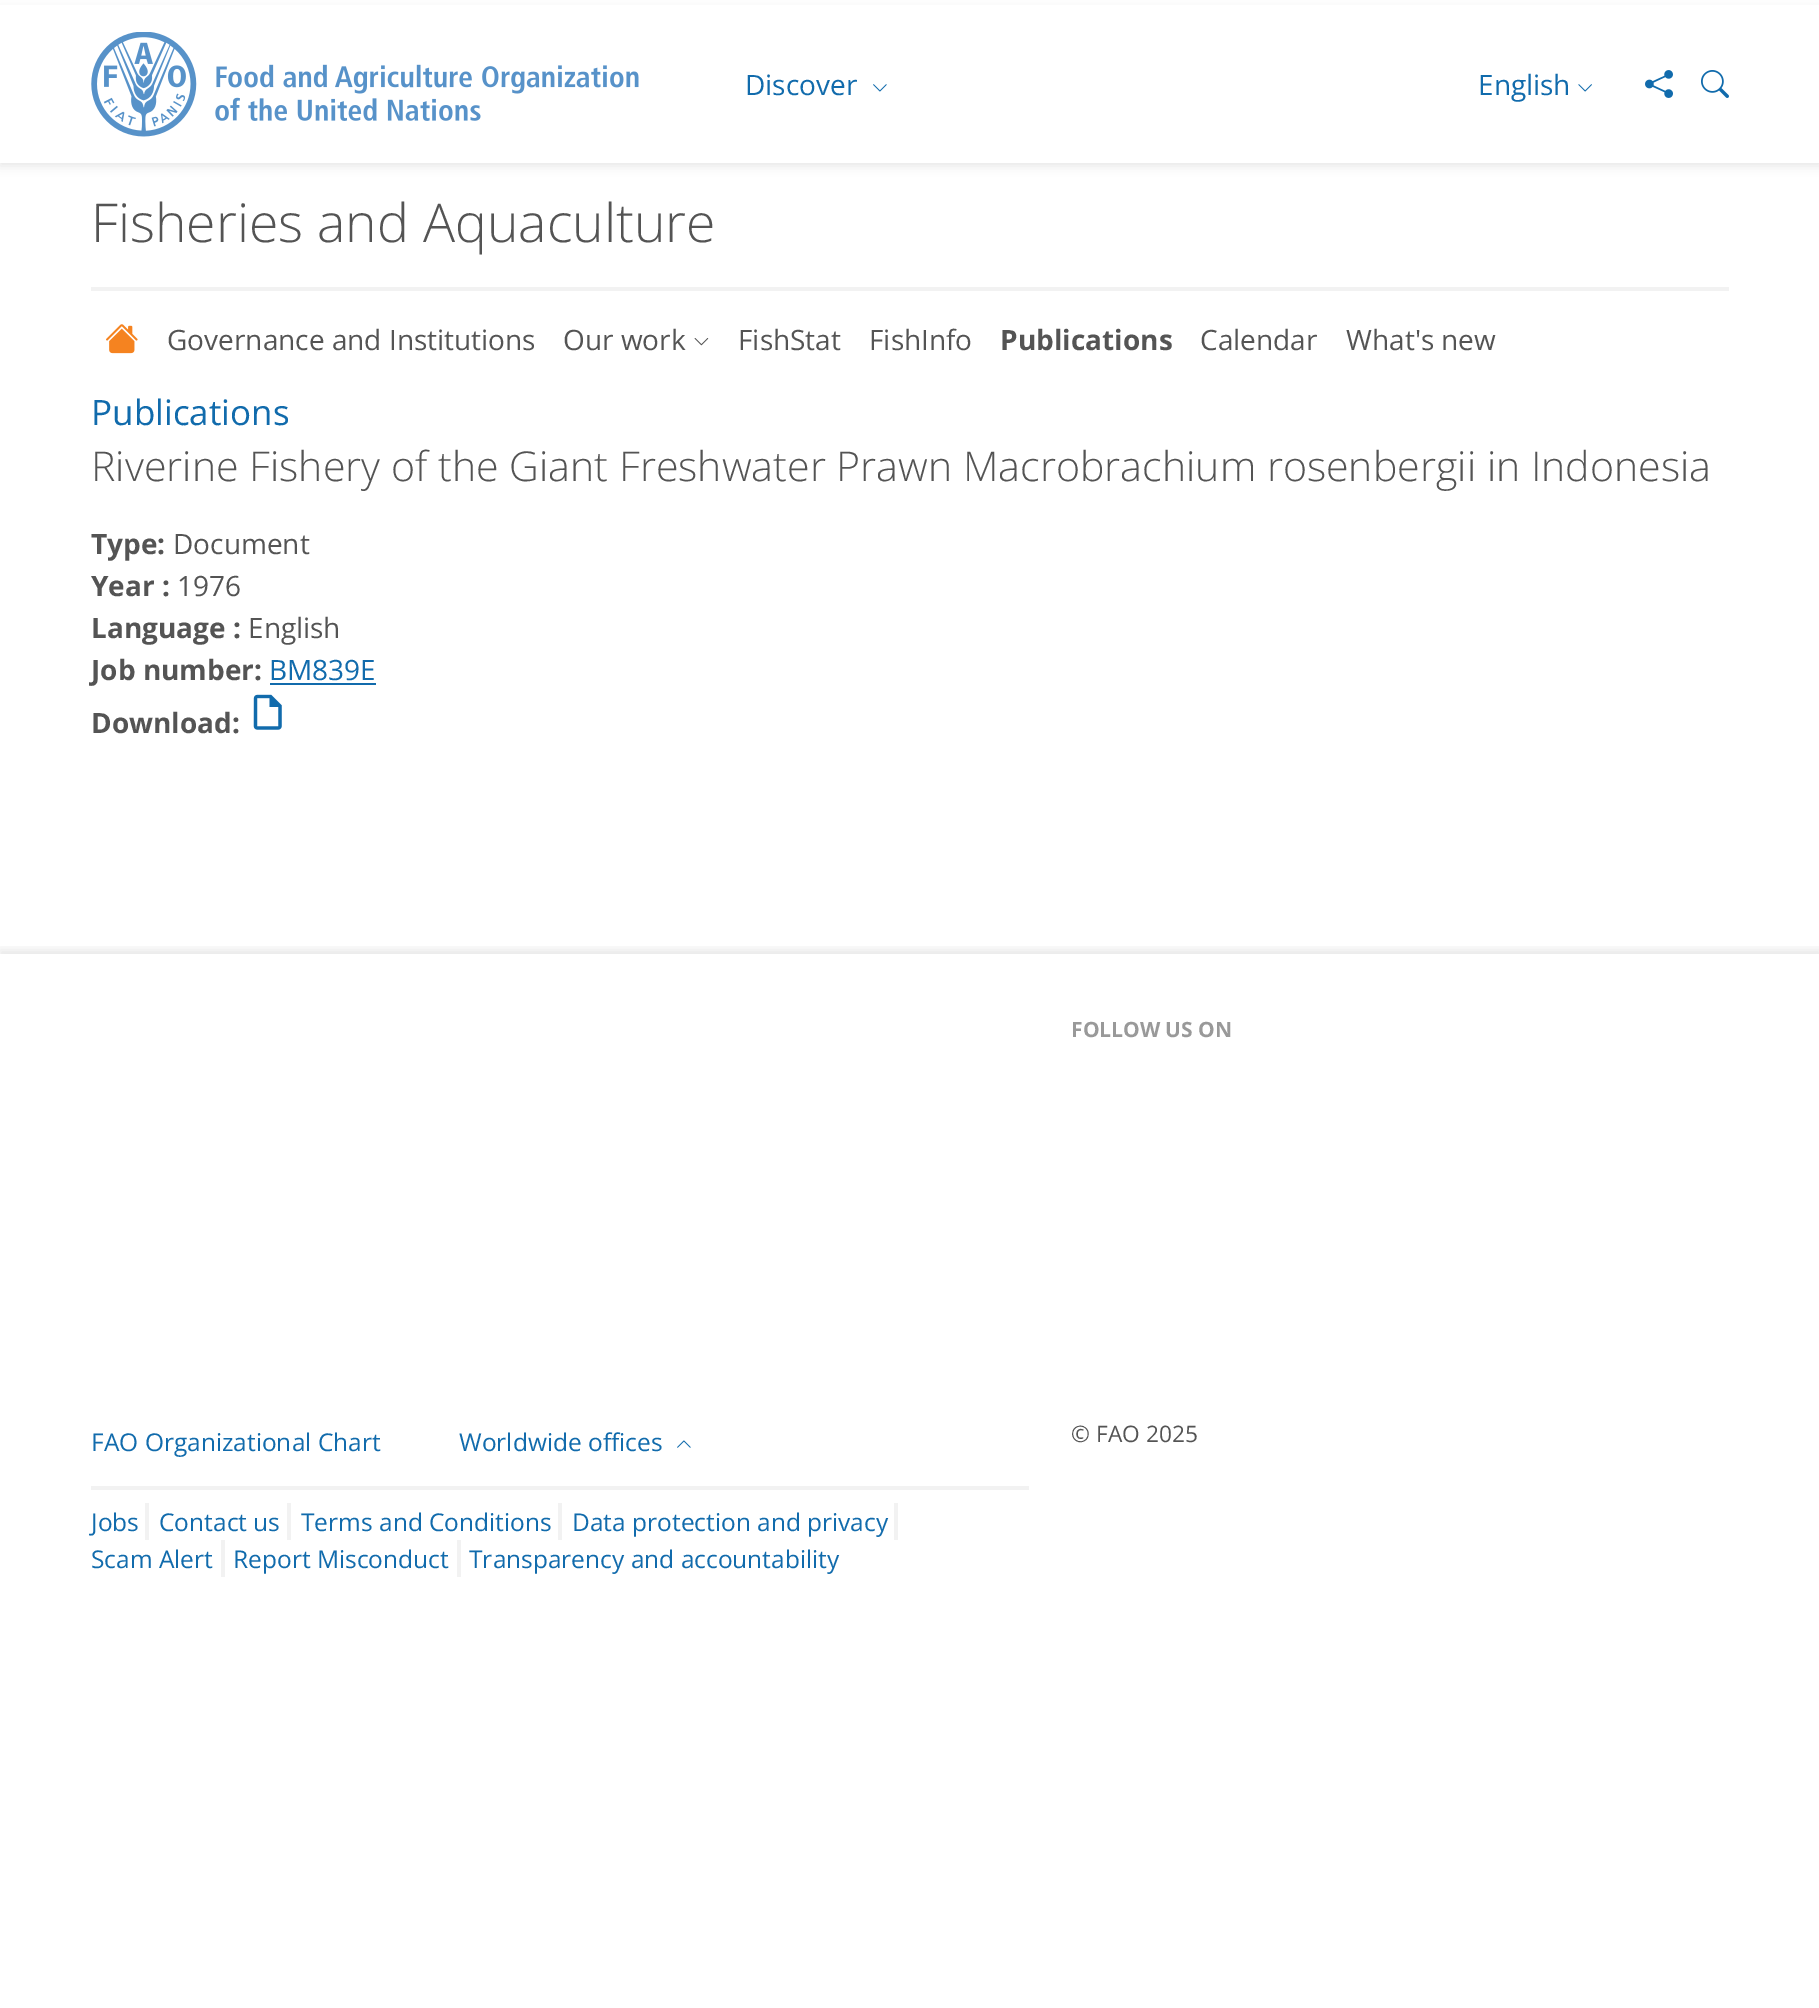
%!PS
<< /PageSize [1819 2008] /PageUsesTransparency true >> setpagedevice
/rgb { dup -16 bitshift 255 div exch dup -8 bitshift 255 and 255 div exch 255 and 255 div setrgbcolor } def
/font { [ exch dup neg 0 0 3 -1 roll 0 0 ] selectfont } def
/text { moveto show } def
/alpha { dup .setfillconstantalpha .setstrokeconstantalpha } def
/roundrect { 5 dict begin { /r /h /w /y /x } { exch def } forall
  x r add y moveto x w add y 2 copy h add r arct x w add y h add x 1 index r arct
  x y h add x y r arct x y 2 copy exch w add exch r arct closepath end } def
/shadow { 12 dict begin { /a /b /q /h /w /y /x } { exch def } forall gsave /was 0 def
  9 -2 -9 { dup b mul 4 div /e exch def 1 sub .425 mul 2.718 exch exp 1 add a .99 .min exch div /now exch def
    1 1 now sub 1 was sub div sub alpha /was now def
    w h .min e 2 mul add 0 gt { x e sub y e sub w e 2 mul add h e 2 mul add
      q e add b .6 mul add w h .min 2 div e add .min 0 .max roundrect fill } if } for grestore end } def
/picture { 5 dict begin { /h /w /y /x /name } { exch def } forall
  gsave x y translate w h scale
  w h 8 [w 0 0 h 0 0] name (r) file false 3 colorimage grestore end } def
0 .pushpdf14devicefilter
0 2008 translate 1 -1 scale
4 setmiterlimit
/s1 { /OpenSans-Regular 28 font 16#116BAC rgb } def
/s2 { /OpenSans-Light 53.5 font 16#545454 rgb } def
/s3 { /OpenSans-Regular 28 font 16#545454 rgb } def
/s4 { /OpenSans-Bold 28 font 16#545454 rgb } def
/s5 { /OpenSans-Regular 35 font 16#116BAC rgb } def
/s6 { /OpenSans-Light 41.15 font 16#545454 rgb } def
/s7 { /OpenSans-Bold 21 font 16#999999 rgb } def
/s8 { /OpenSans-Regular 24.5 font 16#116BAC rgb } def
/s9 { /OpenSans-Regular 22.75 font 16#545454 rgb } def
16#FFFFFF rgb
0 0 1819 2008 rectfill
16#000000 rgb
0 9 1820 157 0 5 0.1 shadow
16#FFFFFF rgb
0 5 1819 158 rectfill
(pic1.raw) 91 32 548 105 picture
s1
(Discover) 745 95 text
(pic2.raw) 873 84 14 8 picture
(English) 1478 95 text
(pic3.raw) 1578 84 14 8 picture
(pic4.raw) 1645 70 28 28 picture
(pic5.raw) 1701 70 28 28 picture
16#F2F2F2 rgb
91 287 1638 4 rectfill
s2
(Fisheries and Aquaculture) 91 242 text
(pic6.raw) 106 324 32 30 picture
s3
(Governance and Institutions) 167 350 text
(Our work) 563 350 text
(pic7.raw) 694 338 15 8 picture
(FishStat) 738 350 text
(FishInfo) 869 350 text
s4
(Publications) 1000 350 text
s3
(Calendar) 1200 350 text
(What's new) 1346 350 text
s5
(Publications) 91 425 text
s6
(Riverine Fishery of the Giant Freshwater Prawn Macrobrachium rosenbergii in Indonesia) 91 481 text
s4
(Type:) 91 554 text
s3
(Document) 173 554 text
s4
(Year :) 91 596 text
s3
(1976) 177 596 text
s4
(Language :) 91 638 text
s3
(English) 248 638 text
s4
(Job number:) 91 680 text
s1
(BM839E) 269 680 text
270 683 106 2 rectfill
s4
(Download:) 91 733 text
(pic8.raw) 253 694 29 36 picture
gsave
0 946 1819 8 rectclip
16#000000 rgb
0 950 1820 714 0 5 0.1 shadow
grestore
s7
(FOLLOW US ON) 1071 1037 text
s8
(FAO Organizational Chart) 91 1451 text
(Worldwide offices) 459 1451 text
(pic9.raw) 677 1440 14 8 picture
16#F2F2F2 rgb
91 1486 938 4 rectfill
s8
(Jobs) 91 1531 text
16#F2F2F2 rgb
145 1503 4 37 rectfill
s8
(Contact us) 159 1531 text
16#F2F2F2 rgb
287 1503 4 37 rectfill
s8
(Terms and Conditions) 301 1531 text
16#F2F2F2 rgb
558 1503 4 37 rectfill
s8
(Data protection and privacy) 572 1531 text
16#F2F2F2 rgb
894 1503 4 37 rectfill
s8
(Scam Alert) 91 1568 text
16#F2F2F2 rgb
221 1540 4 37 rectfill
s8
(Report Misconduct) 233 1568 text
16#F2F2F2 rgb
457 1540 4 37 rectfill
s8
(Transparency and accountability) 469 1568 text
s9
(© FAO 2025) 1071 1442 text
.poppdf14devicefilter showpage
